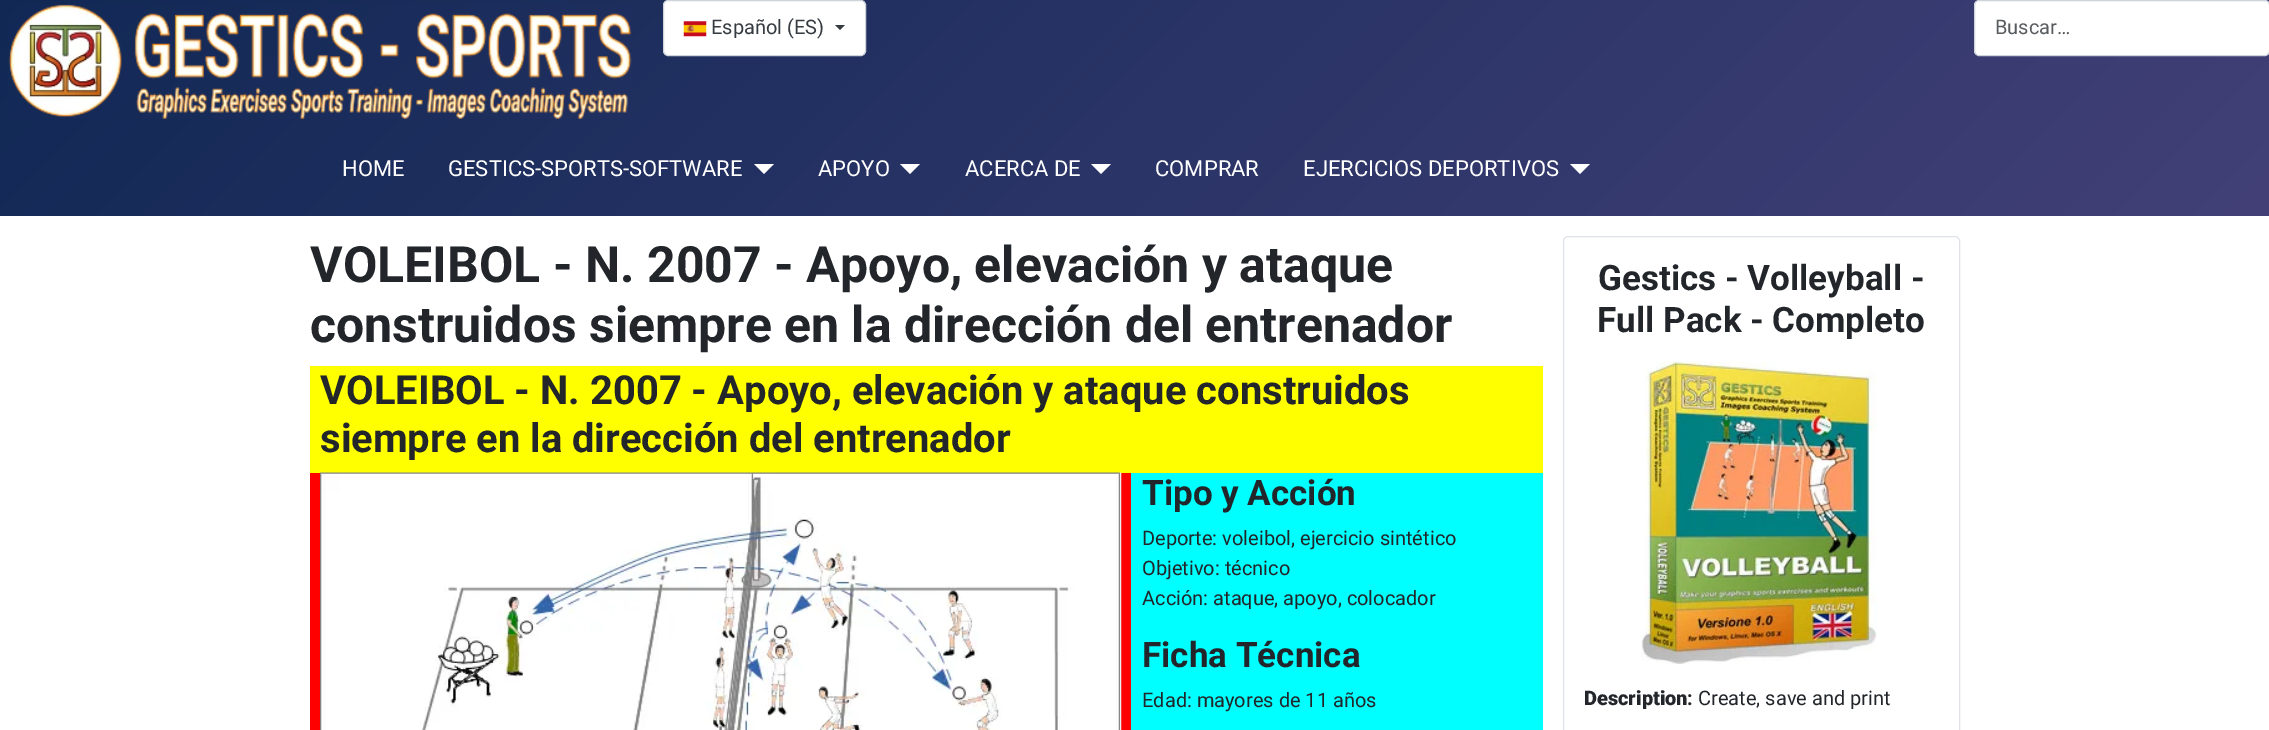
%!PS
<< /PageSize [2269 730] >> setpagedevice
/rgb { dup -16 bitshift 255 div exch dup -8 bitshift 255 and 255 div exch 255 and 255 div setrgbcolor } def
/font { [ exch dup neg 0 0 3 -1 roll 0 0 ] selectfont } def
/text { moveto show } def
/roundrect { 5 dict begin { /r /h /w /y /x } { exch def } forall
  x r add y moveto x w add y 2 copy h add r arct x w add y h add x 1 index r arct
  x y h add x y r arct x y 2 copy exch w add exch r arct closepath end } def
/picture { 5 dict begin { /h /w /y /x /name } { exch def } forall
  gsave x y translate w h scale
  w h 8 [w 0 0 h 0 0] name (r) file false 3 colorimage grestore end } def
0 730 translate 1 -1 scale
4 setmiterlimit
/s1 { /Roboto-Regular 20 font 16#353B41 rgb } def
/s2 { /Roboto-Regular 20 font 16#595C5F rgb } def
/s3 { /Roboto-Regular 22 font 16#FFFFFF rgb } def
/s4 { /Roboto-Bold 50 font 16#22262A rgb } def
/s5 { /Roboto-Bold 40 font 16#22262A rgb } def
/s6 { /Roboto-Bold 35 font 16#22262A rgb } def
/s7 { /Roboto-Regular 20 font 16#22262A rgb } def
/s8 { /Roboto-Black 20 font 16#22262A rgb } def
/s9 { /Roboto-Bold 20 font 16#22262A rgb } def
16#FFFFFF rgb
0 0 2269 730 rectfill
gsave 0 0 moveto 2269 0 lineto 2269 216 lineto 0 216 lineto closepath clip newpath
<< /ShadingType 2 /ColorSpace /DeviceRGB /Coords [513 -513 1757 730] /Extend [true true] /Function << /FunctionType 2 /Domain [0 1] /C0 [0.067 0.157 0.333] /C1 [0.259 0.251 0.467] /N 1 >> >> shfill grestore
(pic1.raw) 8 4 624 115 picture
663.5 0.5 202 55 4.5 roundrect gsave fill grestore
16#CED4DA rgb
stroke
(pic2.raw) 683 21 24 16 picture
s1
(Español \(ES\)) 711 34 text
835 25 moveto 845 25 lineto 840 30 lineto closepath fill
16#FFFFFF rgb
1974.5 0.5 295 55 4.5 roundrect gsave fill grestore
16#CED4DA rgb
stroke
s2
(Buscar…) 1995 34 text
s3
(HOME) 342 176 text
(GESTICS-SPORTS-SOFTWARE) 448 176 text
754 164 moveto 774 164 lineto 764 174 lineto closepath fill
(APOYO) 818 176 text
900 164 moveto 920 164 lineto 910 174 lineto closepath fill
(ACERCA DE) 965 176 text
1091 164 moveto 1111 164 lineto 1101 174 lineto closepath fill
(COMPRAR) 1155 176 text
(EJERCICIOS DEPORTIVOS) 1303 176 text
1570 164 moveto 1590 164 lineto 1580 174 lineto closepath fill
s4
(VOLEIBOL - N. 2007 - Apoyo, elevación y ataque) 310 282 text
(construidos siempre en la dirección del entrenador) 310 342 text
16#FFFF00 rgb
310 366 1233 107 rectfill
s5
(VOLEIBOL - N. 2007 - Apoyo, elevación y ataque construidos) 320 404 text
(siempre en la dirección del entrenador) 320 452 text
16#FF0000 rgb
310 473 821 257 rectfill
(pic3.raw) 320 472 802 258 picture
16#00FFFF rgb
1131 473 412 257 rectfill
s6
(Tipo y Acción) 1142 505 text
s7
(Deporte: voleibol, ejercicio sintético) 1142 545 text
(Objetivo: técnico) 1142 575 text
(Acción: ataque, apoyo, colocador) 1142 605 text
s6
(Ficha Técnica) 1142 667 text
s7
(Edad: mayores de 11 años) 1142 707 text
16#DFE3E7 rgb
1563.5 236.5 396 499 4.5 roundrect stroke
s6
(Gestics - Volleyball -) 1598 290 text
(Full Pack - Completo) 1597 332 text
(pic4.raw) 1641 361 236 303 picture
s8
(Description) 1584 705 text
s9
(:) 1687 705 text
s7
(Create, save and print) 1698 705 text
showpage
